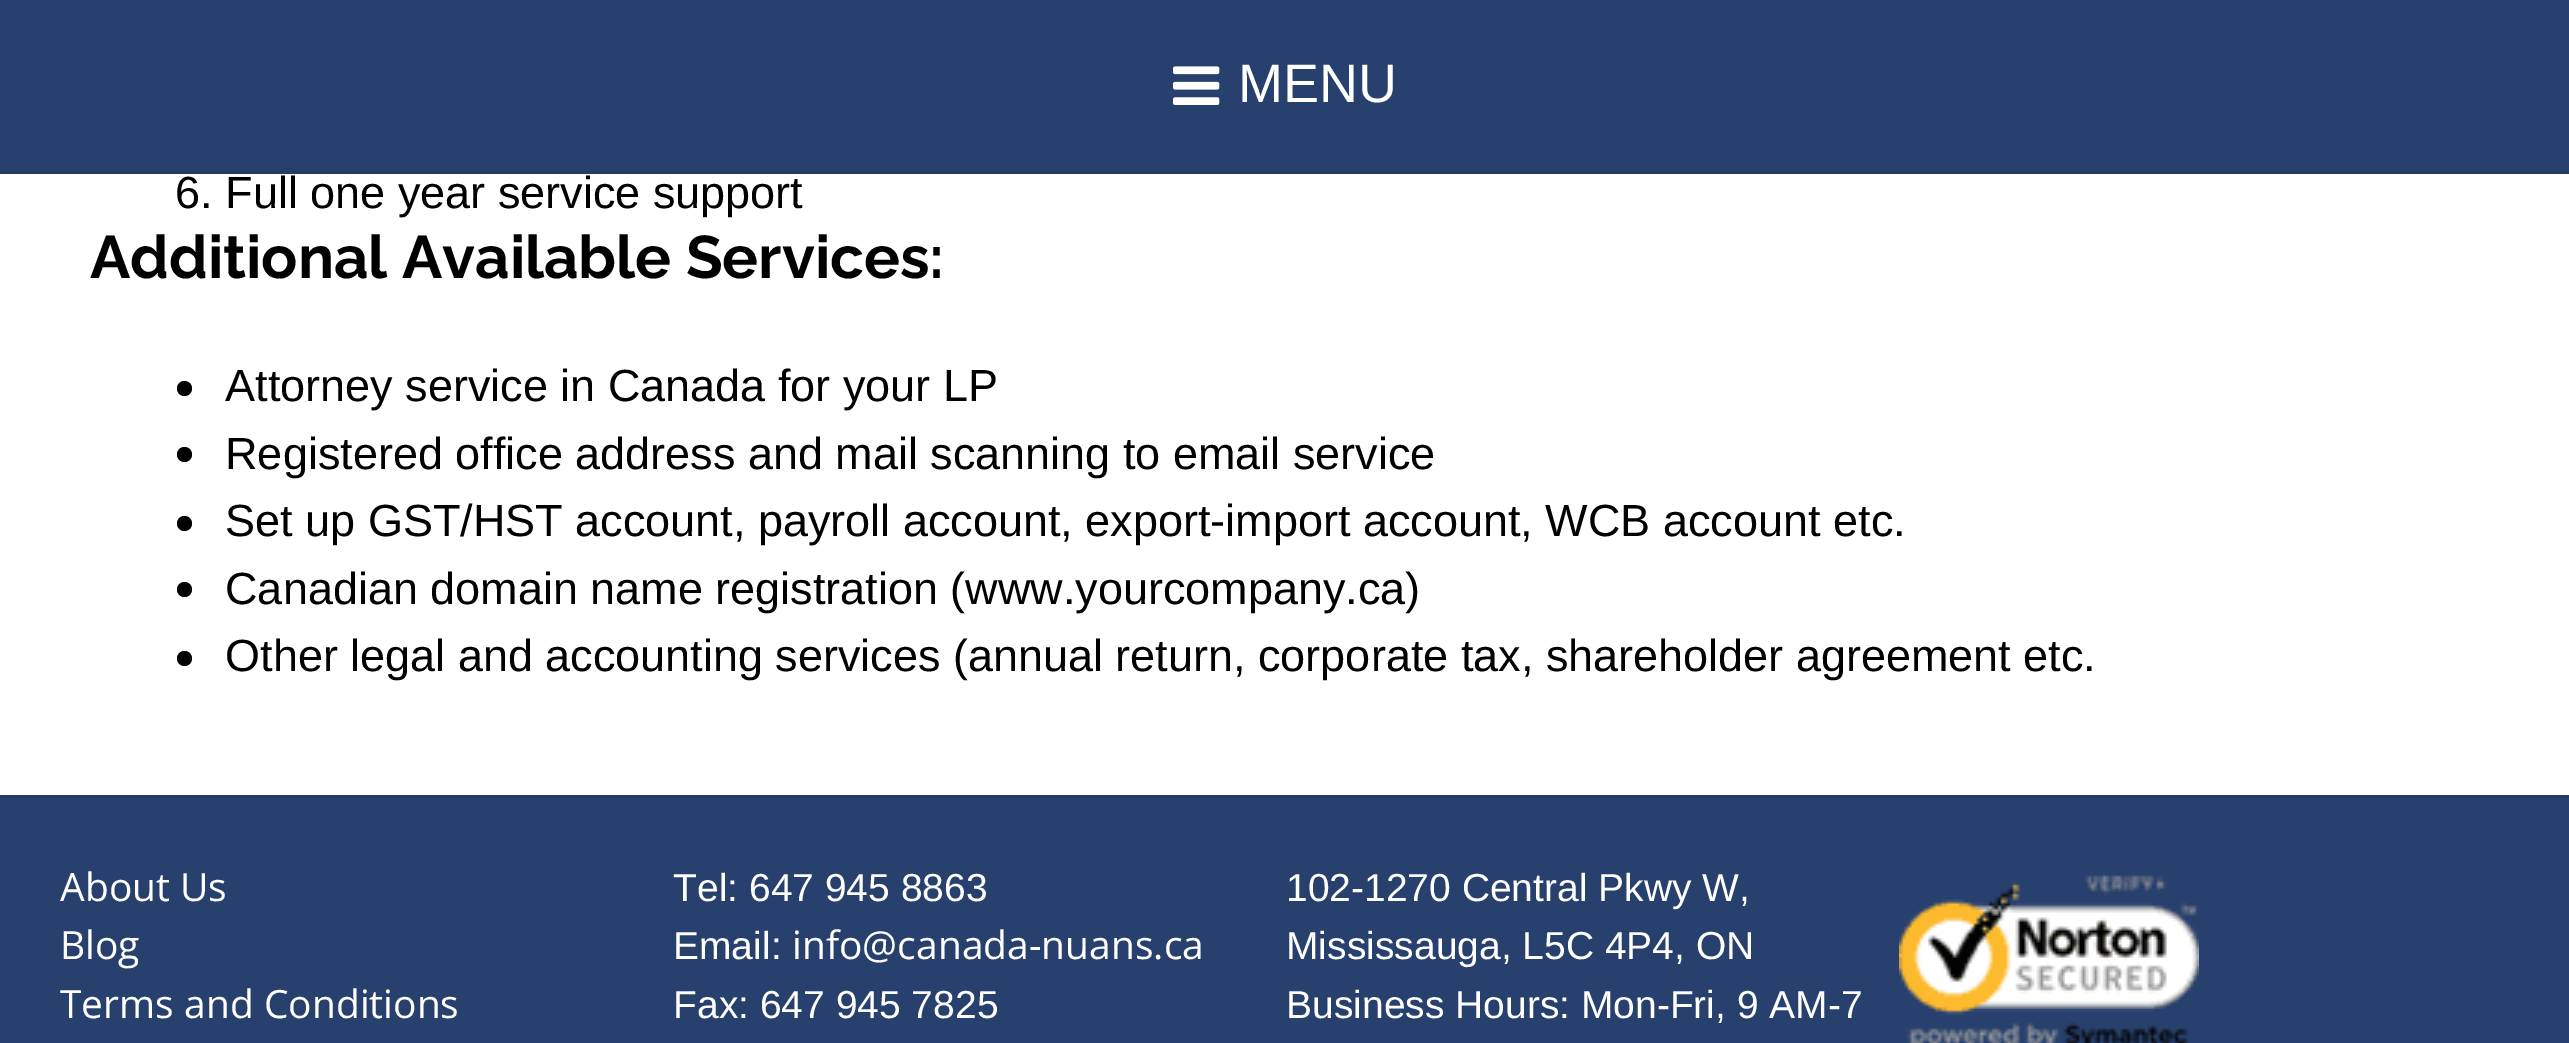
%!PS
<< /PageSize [2569 1043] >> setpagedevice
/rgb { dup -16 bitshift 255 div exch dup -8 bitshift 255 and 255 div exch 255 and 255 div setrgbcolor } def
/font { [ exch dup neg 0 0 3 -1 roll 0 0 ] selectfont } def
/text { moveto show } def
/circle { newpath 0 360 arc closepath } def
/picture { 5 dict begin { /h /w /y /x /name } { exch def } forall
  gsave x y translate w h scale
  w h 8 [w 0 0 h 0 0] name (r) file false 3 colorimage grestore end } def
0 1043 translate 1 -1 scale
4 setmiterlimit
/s1 { /LiberationSans-Regular 54 font 16#FFFFFF rgb } def
/s2 { /LiberationSans-Regular 45 font 16#000000 rgb } def
/s3 { /Raleway-Bold 60 font 16#000000 rgb } def
/s4 { /OpenSans-Regular 39 font 16#FFFFFF rgb } def
/s5 { /LiberationSans-Regular 39 font 16#FFFFFF rgb } def
16#FFFFFF rgb
0 0 2569 1043 rectfill
16#28406D rgb
0 0 2569 171 rectfill
16#253B64 rgb
0 171 2569 3 rectfill
(pic1.raw) 1173 66 47 39 picture
s1
(MENU) 1238 102 text
s2
(6. Full one year service support) 175 208 text
s3
(Additional Available Services:) 90 278 text
184.5 388.5 7.5 circle fill
s2
(Attorney service in Canada for your LP) 225 401 text
184.5 454.5 7.5 circle fill
(Registered office address and mail scanning to email service) 225 469 text
184.5 523.5 7.5 circle fill
(Set up GST/HST account, payroll account, export-import account, WCB account etc.) 225 536 text
184.5 589.5 7.5 circle fill
(Canadian domain name registration \(www.yourcompany.ca\)) 225 604 text
184.5 658.5 7.5 circle fill
(Other legal and accounting services \(annual return, corporate tax, shareholder agreement etc.) 225 671 text
16#28406D rgb
0 798 2569 245 rectfill
16#253B64 rgb
0 795 2569 3 rectfill
s4
(About Us) 60 901 text
(Blog) 60 959 text
(Terms and Conditions) 60 1018 text
s5
(Tel: 647 945 8863) 673 901 text
(Email:) 673 959 text
s4
(info@canada-nuans.ca) 792 959 text
s5
(Fax: 647 945 7825) 673 1018 text
(102-1270 Central Pkwy W,) 1286 901 text
(Mississauga, L5C 4P4, ON) 1286 959 text
(Business Hours: Mon-Fri, 9 AM-7) 1286 1018 text
(pic2.raw) 1899 875 300 168 picture
showpage
